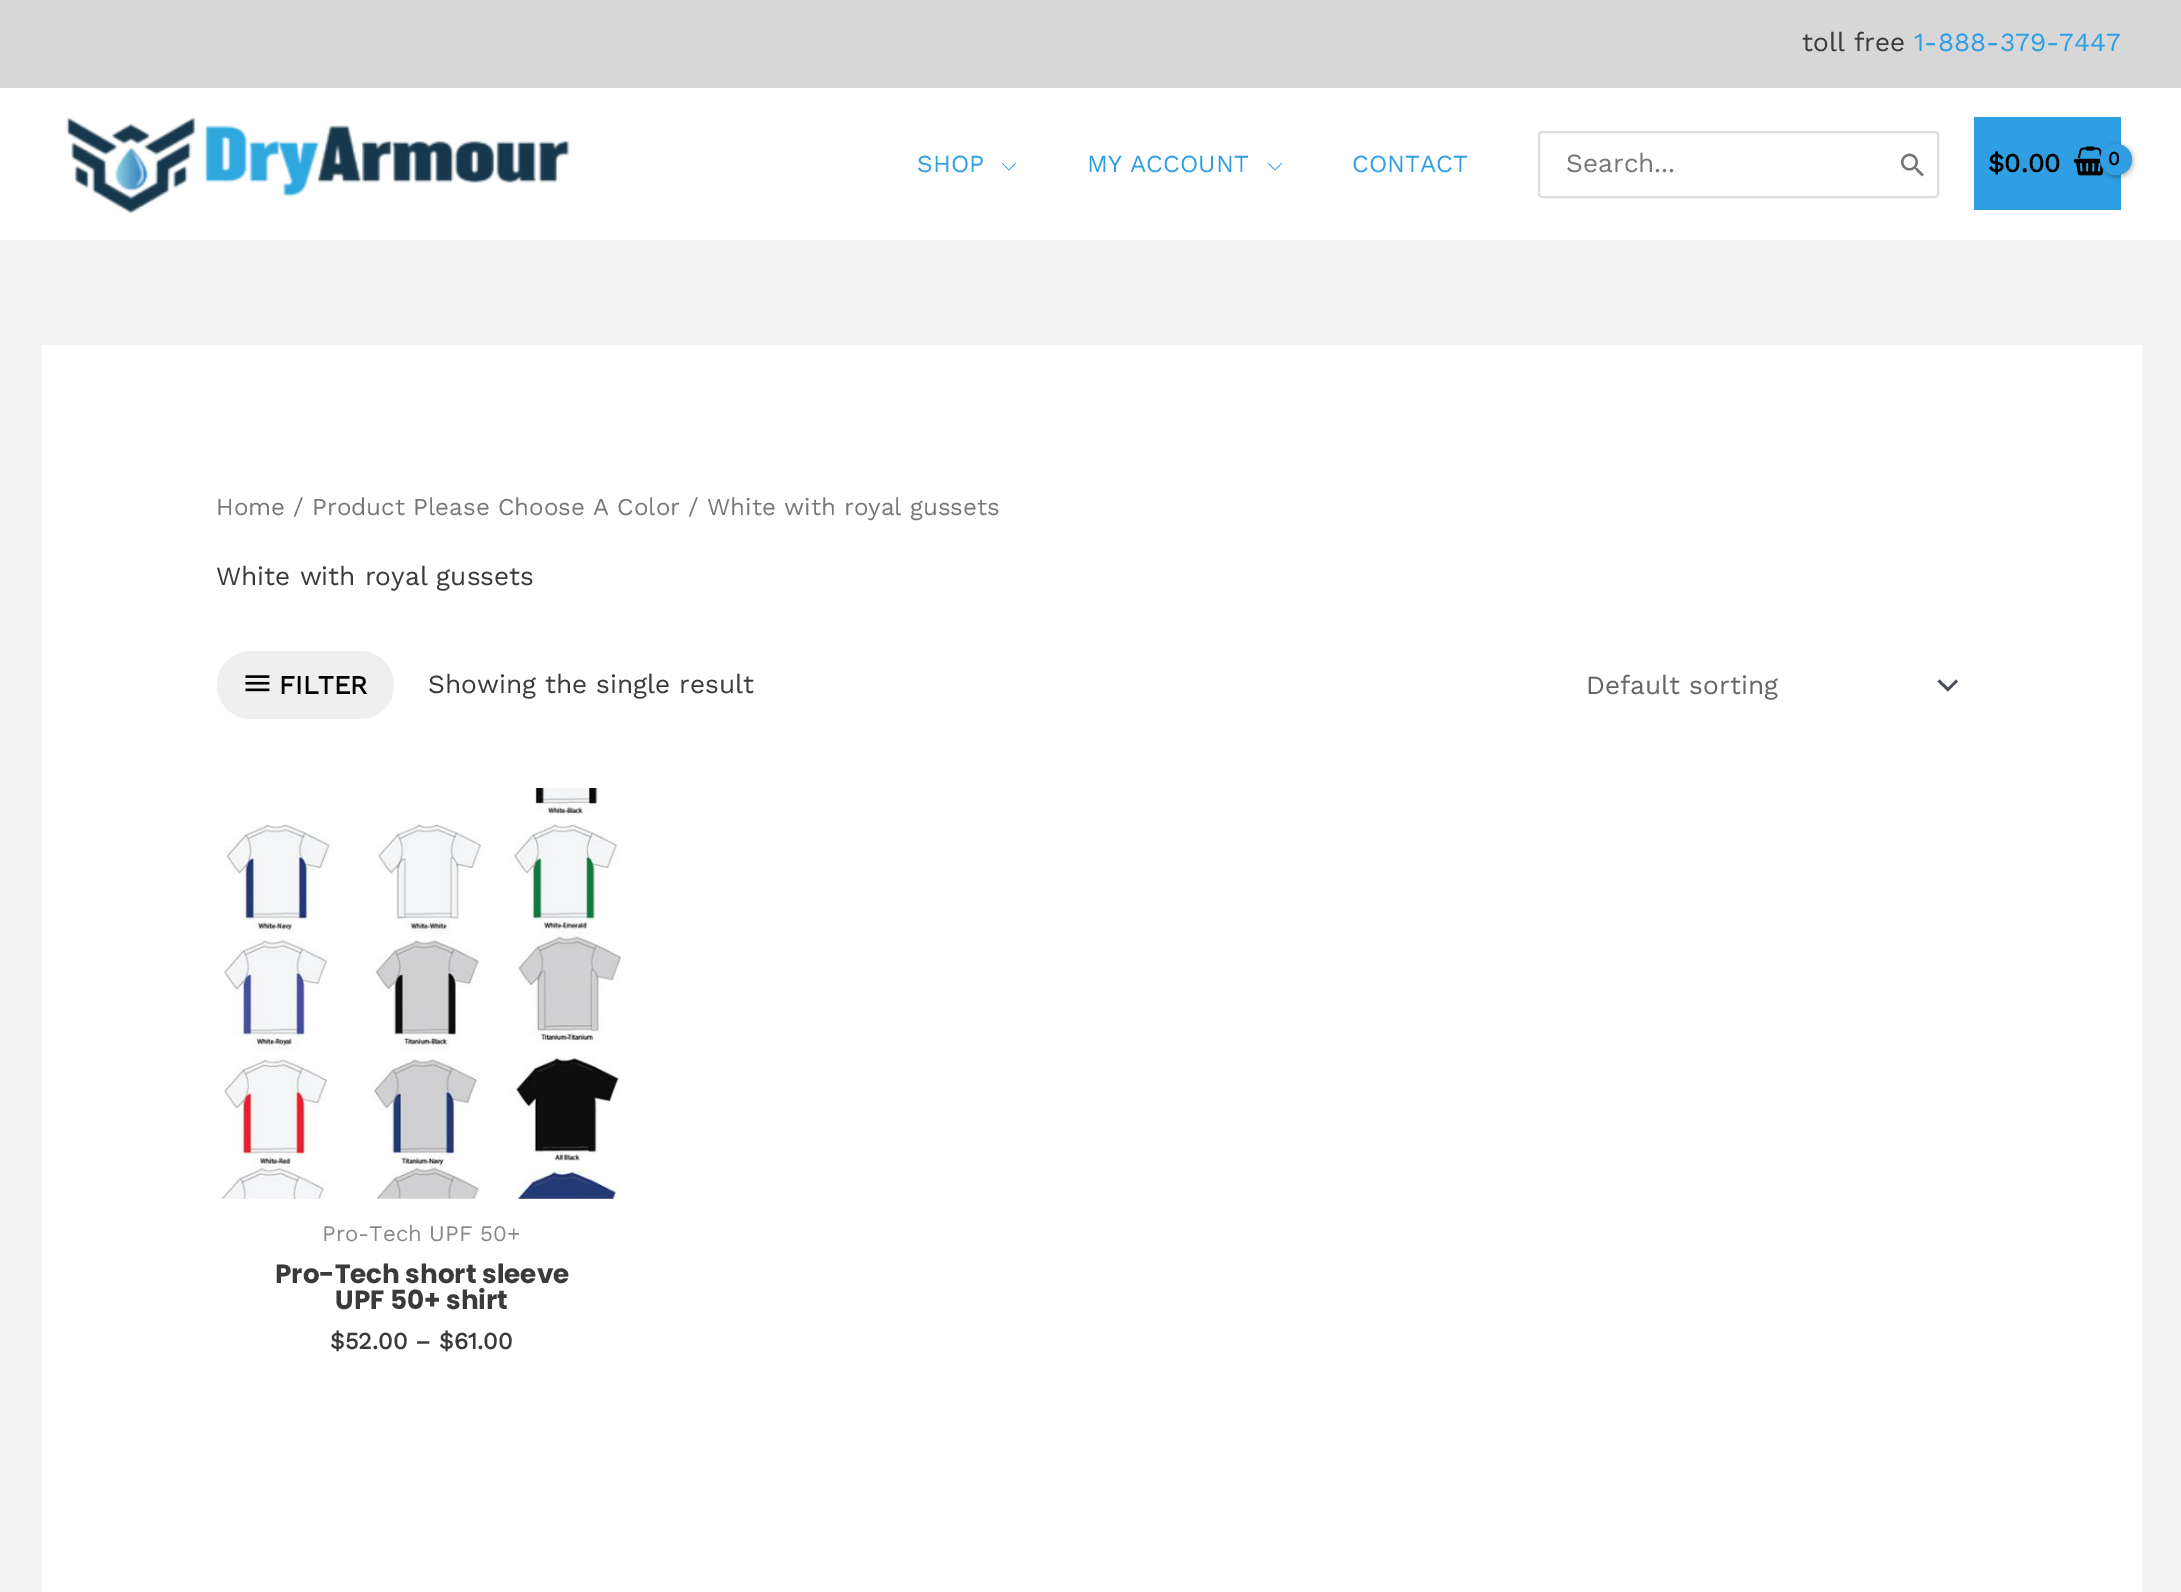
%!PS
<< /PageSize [2181 1592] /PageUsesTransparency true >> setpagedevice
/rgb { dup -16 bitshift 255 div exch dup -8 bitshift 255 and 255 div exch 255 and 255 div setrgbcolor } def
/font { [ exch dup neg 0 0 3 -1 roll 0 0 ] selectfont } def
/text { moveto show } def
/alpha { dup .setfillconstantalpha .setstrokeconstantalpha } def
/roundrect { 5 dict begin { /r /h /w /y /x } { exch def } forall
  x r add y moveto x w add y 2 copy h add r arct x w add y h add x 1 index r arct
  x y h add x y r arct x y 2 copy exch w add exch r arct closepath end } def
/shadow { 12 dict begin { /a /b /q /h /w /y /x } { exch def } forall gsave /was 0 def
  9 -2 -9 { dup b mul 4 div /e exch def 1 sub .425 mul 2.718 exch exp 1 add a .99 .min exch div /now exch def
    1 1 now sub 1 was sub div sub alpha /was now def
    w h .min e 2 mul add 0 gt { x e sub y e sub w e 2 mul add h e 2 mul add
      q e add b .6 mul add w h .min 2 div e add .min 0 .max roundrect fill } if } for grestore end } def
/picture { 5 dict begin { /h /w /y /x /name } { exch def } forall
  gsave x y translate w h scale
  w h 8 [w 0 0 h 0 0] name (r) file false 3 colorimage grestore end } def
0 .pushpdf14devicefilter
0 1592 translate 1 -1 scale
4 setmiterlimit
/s1 { /WorkSans-Regular 26.25 font 16#3A3A3A rgb } def
/s2 { /WorkSans-Regular 26.25 font 16#2F9EE2 rgb } def
/s3 { /WorkSans-Regular 24.5 font 16#2F9EE2 rgb } def
/s4 { /WorkSans-Regular 26.25 font 16#777777 rgb } def
/s5 { /WorkSans-Bold 26.25 font 16#000000 rgb } def
/s6 { /WorkSans-Regular 24.15 font 16#777777 rgb } def
/s7 { /WorkSans-Bold 26 font 16#000000 rgb } def
/s8 { /WorkSans-Regular 26.25 font 16#666666 rgb } def
/s9 { /WorkSans-Regular 22.25 font 16#898989 rgb } def
/s10 { /Poppins-Bold 26.25 font 16#3A3A3A rgb } def
/s11 { /WorkSans-Bold 23.5 font 16#3A3A3A rgb } def
16#F4F4F4 rgb
0 0 2181 1592 rectfill
16#D7D7D7 rgb
0 0 2181 88 rectfill
s1
(toll free) 1802 51 text
s2
(1-888-379-7447) 1914 51 text
16#FFFFFF rgb
0 88 2181 152 rectfill
(pic1.raw) 66 117 504 97 picture
s3
(SHOP) 917 172 text
(pic2.raw) 1001 162 15 9 picture
(MY ACCOUNT) 1087 172 text
(pic2.raw) 1267 162 15 9 picture
(CONTACT) 1352 172 text
16#DDDDDD rgb
2 setlinewidth
1539 132 399 65 3 roundrect stroke
s4
(Search...) 1566 172 text
(pic3.raw) 1901 153 23 24 picture
16#2F9EE2 rgb
1974 117 147 93 rectfill
s5
($0.00) 1988 172 text
(pic4.raw) 2073 146 31 30 picture
2102 145 31 32 15.5 2.5 0.3 shadow
16#2F9EE2 rgb
2100 144 32 31 15.5 roundrect fill
/WorkSans-Bold 19 font
16#000000 rgb
2108 165 moveto -1 0 (0) ashow
16#FFFFFF rgb
42 345 2100 1247 rectfill
s6
(Home / Product Please Choose A Color / White with royal gussets) 216 515 text
s1
(White with royal gussets) 216 585 text
16#EFEFEF rgb
217 651 177 68 34 roundrect fill
(pic5.raw) 245 675 25 17 picture
s7
(FILTER) 279 694 text
s1
(Showing the single result) 428 693 text
16#4B4F58 rgb
1937.5 681.5 moveto 1948 691.5 lineto 1958 681.5 lineto 1956 679.5 lineto 1948 687.5 lineto 1939.5 679.5 lineto closepath fill
s8
(Default sorting) 1586 694 text
(pic6.raw) 217 788 409 411 picture
s9
(Pro-Tech UPF 50+) 322 1241 text
s10
(Pro-Tech short sleeve) 275 1283 text
(UPF 50+ shirt) 335 1309 text
s11
($52.00 – $61.00) 330 1349 text
.poppdf14devicefilter showpage
